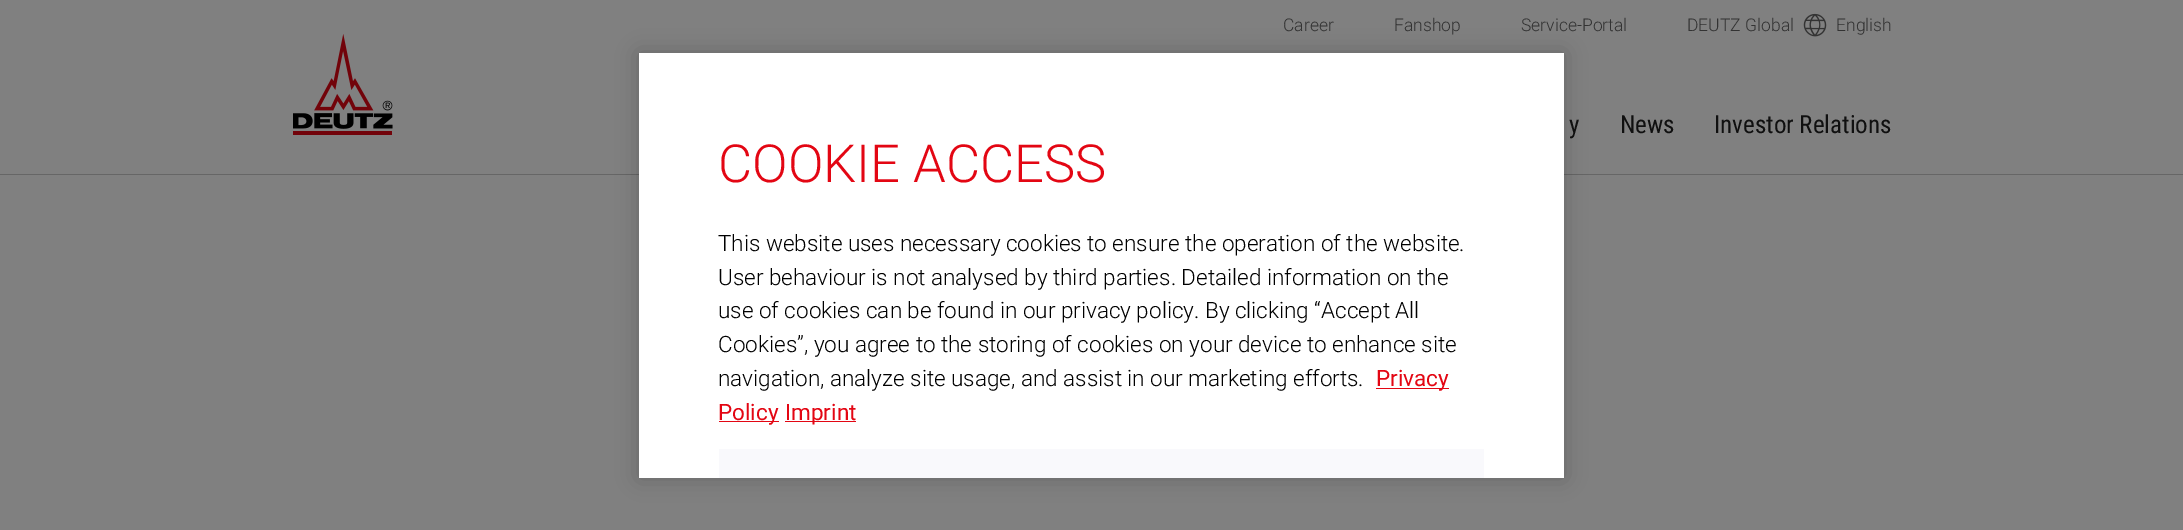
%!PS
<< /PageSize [2183 530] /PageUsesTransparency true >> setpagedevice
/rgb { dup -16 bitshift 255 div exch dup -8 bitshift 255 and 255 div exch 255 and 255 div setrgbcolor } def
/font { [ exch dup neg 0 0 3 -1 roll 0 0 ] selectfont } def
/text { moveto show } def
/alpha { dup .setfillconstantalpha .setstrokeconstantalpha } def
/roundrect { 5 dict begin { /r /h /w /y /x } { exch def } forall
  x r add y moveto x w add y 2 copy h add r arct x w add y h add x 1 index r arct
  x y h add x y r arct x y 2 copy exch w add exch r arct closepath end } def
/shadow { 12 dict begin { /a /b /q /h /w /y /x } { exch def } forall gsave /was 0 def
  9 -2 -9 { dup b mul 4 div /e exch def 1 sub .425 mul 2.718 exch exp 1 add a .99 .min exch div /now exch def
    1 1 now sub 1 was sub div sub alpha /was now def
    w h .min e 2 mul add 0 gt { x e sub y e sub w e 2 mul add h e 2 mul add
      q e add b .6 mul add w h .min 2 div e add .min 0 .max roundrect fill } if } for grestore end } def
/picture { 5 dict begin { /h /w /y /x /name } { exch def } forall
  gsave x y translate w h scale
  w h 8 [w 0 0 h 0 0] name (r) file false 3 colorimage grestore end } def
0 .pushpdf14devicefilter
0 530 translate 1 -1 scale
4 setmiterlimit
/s1 { /Roboto-Light 17.5 font 16#333333 rgb } def
/s2 { /RobotoCondensed-Regular 25 font 16#101010 rgb } def
/s3 { /Roboto-Light 52.5 font 16#E30613 rgb } def
/s4 { /Roboto-Light 22.5 font 16#000000 rgb } def
/s5 { /Roboto-Regular 22.5 font 16#E30613 rgb } def
16#808080 rgb
0 0 2183 530 rectfill
16#666666 rgb
0 174 2183 1 rectfill
(pic1.raw) 293 34 100 101 picture
s1
(Career) 1283 31 text
(Fanshop) 1394 31 text
(Service-Portal) 1521 31 text
(DEUTZ Global) 1687 31 text
(pic2.raw) 1803 13 24 24 picture
(English) 1836 31 text
s2
(y) 1569 133 text
(News) 1620 133 text
(Investor Relations) 1714 133 text
16#000000 rgb
639 53 925 425 0 11 0.2 shadow
16#FFFFFF rgb
639 53 925 425 rectfill
s3
(COOKIE ACCESS) 718 182 text
s4
(This website uses necessary cookies to ensure the operation of the website.) 718 251 text
(User behaviour is not analysed by third parties. Detailed information on the) 718 285 text
(use of cookies can be found in our privacy policy. By clicking “Accept All) 718 318 text
(Cookies”, you agree to the storing of cookies on your device to enhance site) 718 352 text
(navigation, analyze site usage, and assist in our marketing efforts.) 718 386 text
16#E30613 rgb
1376 388 73 1 rectfill
s5
(Privacy) 1376 386 text
719 421 60 1 rectfill
(Policy) 718 420 text
785 421 71 1 rectfill
(Imprint) 785 420 text
16#F9F9FC rgb
719 449 765 29 rectfill
.poppdf14devicefilter showpage
